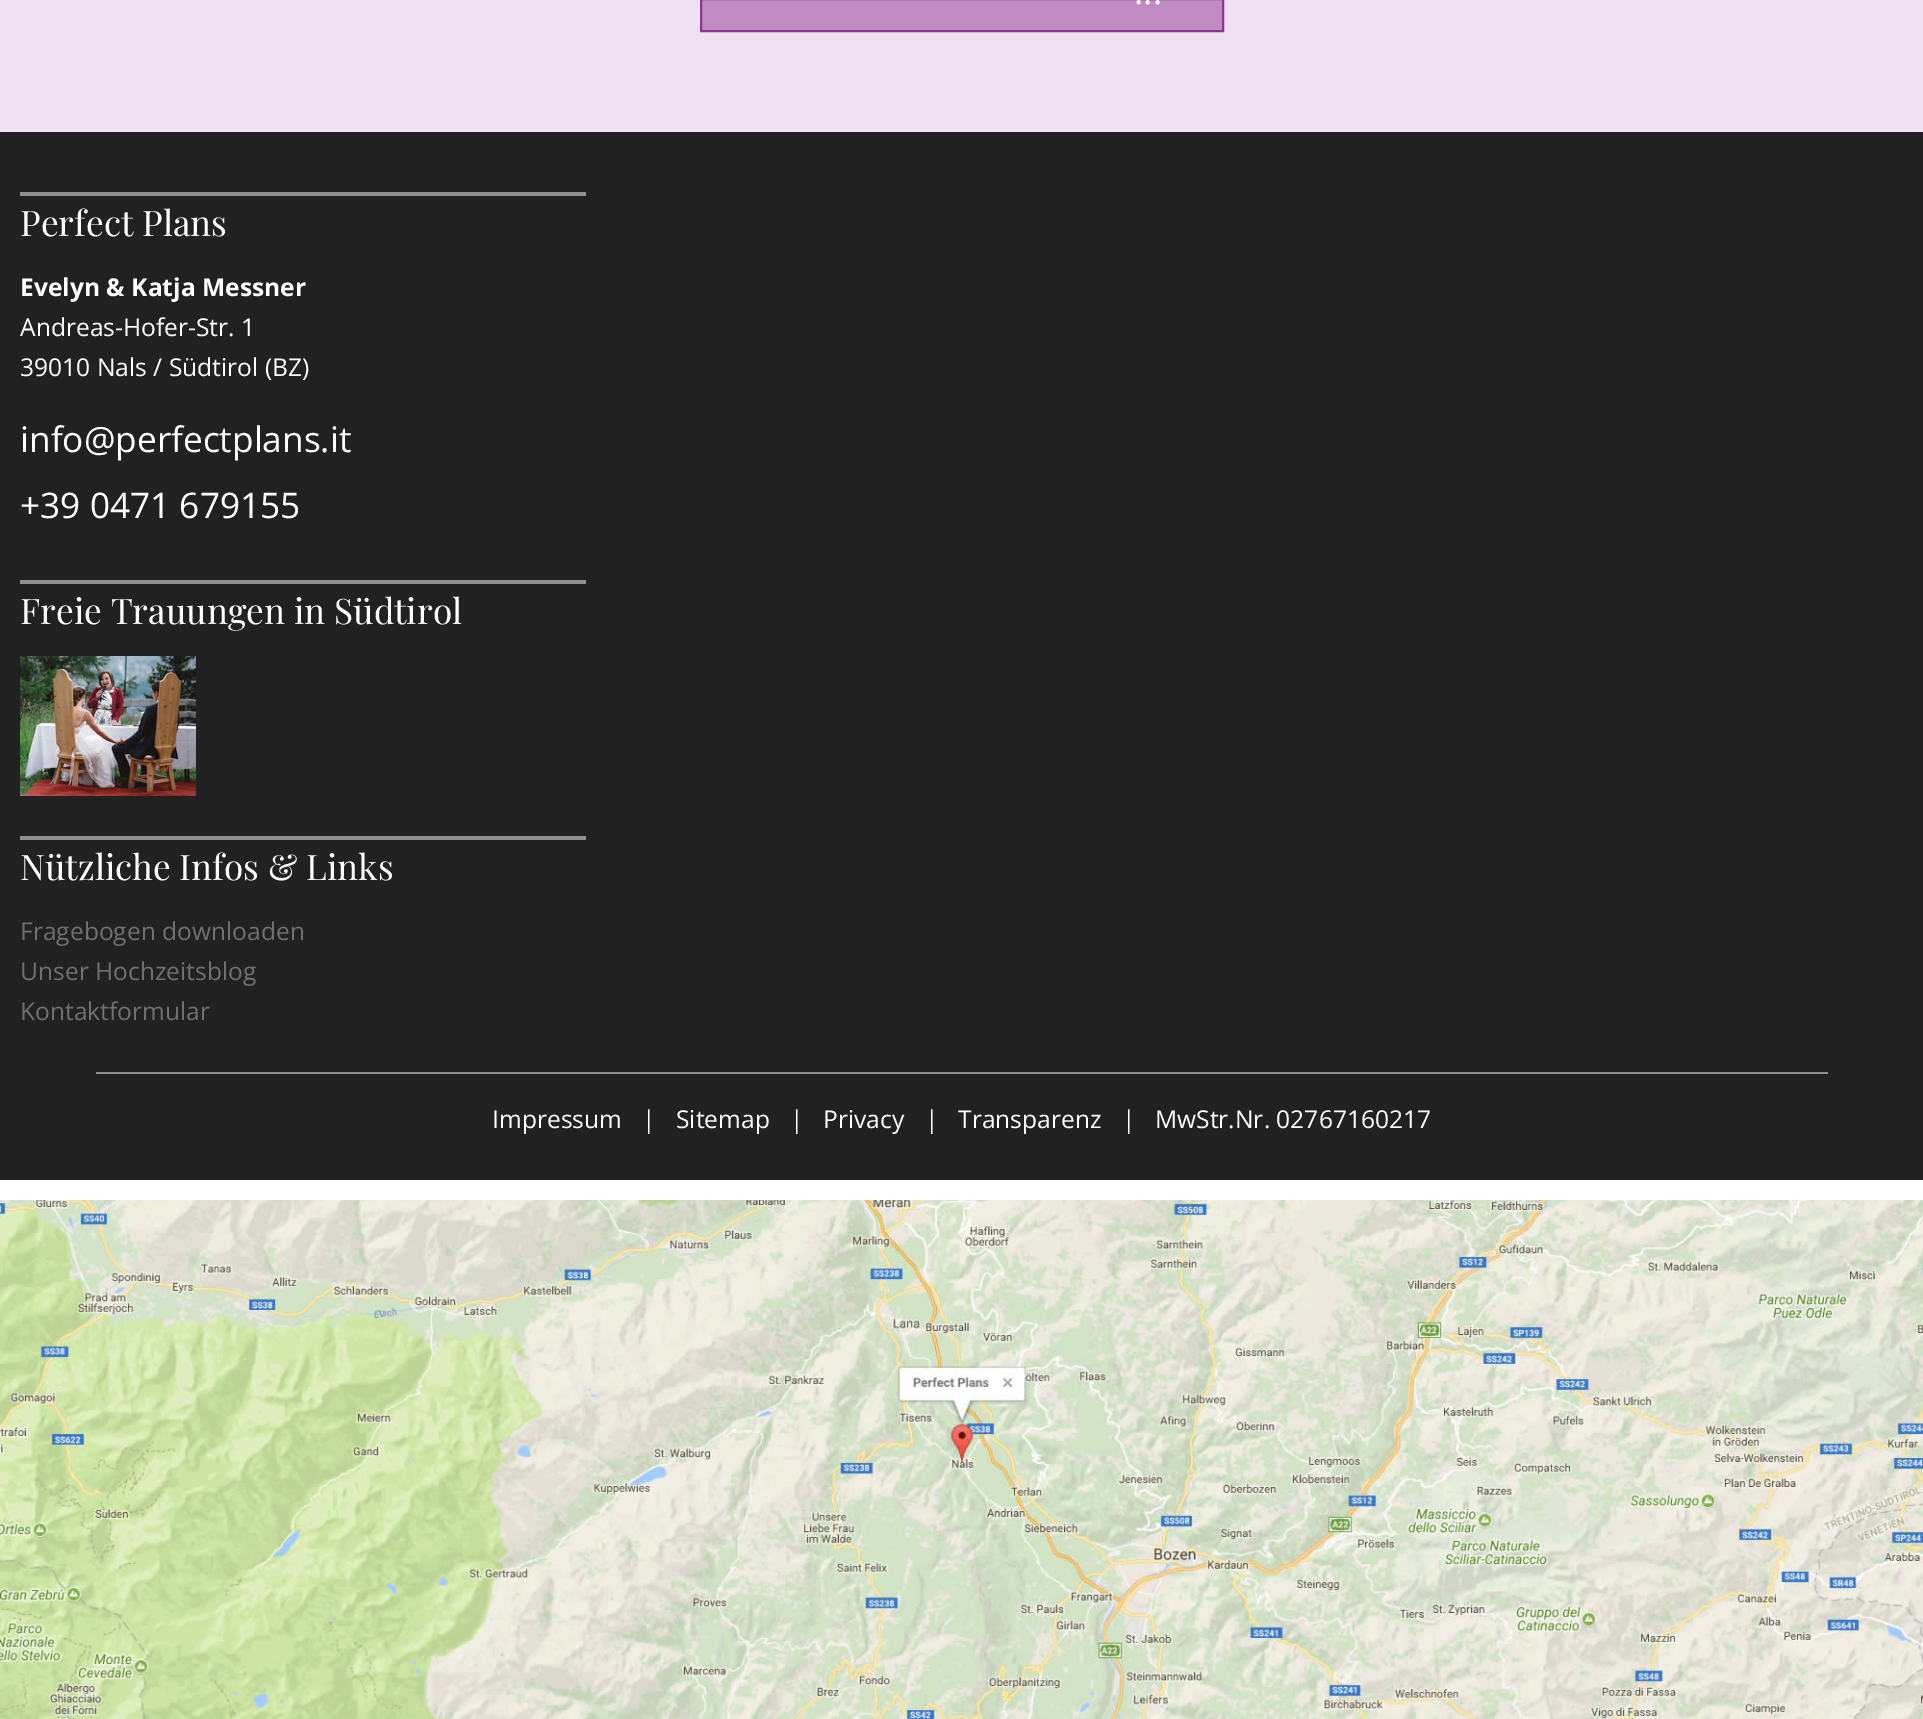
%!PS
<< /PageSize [1923 1719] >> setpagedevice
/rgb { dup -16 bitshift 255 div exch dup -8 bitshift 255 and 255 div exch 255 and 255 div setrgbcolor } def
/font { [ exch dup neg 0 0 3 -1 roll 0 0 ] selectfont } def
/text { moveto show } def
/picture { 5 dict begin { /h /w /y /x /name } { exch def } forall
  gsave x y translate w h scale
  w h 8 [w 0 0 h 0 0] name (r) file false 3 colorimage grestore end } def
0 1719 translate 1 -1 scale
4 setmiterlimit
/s1 { /OpenSans-Regular 35.25 font 16#FFFFFF rgb } def
/s2 { /PlayfairDisplay-Regular 35.25 font 16#FFFFFF rgb } def
/s3 { /OpenSans-Bold 24.6 font 16#FFFFFF rgb } def
/s4 { /OpenSans-Regular 24.6 font 16#FFFFFF rgb } def
/s5 { /OpenSans-Regular 24.6 font 16#6F7071 rgb } def
16#FFFFFF rgb
0 0 1923 1719 rectfill
16#EFE1F0 rgb
0 0 1923 132 rectfill
16#BF8BC2 rgb
701 -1 moveto 1223 -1 lineto 1223 31 lineto 701 31 lineto closepath gsave fill grestore
16#8E3594 rgb
2 setlinewidth
stroke
s1
(...) 1134 4 text
16#212121 rgb
0 132 1923 1048 rectfill
16#909090 rgb
20 192 566 4 rectfill
s2
(Perfect Plans) 20 236 text
s3
(Evelyn & Katja Messner) 20 296 text
s4
(Andreas-Hofer-Str. 1) 20 336 text
(39010 Nals / Südtirol \(BZ\)) 20 376 text
s1
(info@perfectplans.it) 20 452 text
(+39 0471 679155) 20 518 text
16#909090 rgb
20 580 566 4 rectfill
s2
(Freie Trauungen in Südtirol) 20 624 text
(pic1.raw) 20 656 176 140 picture
16#909090 rgb
20 836 566 4 rectfill
s2
(Nützliche Infos & Links) 20 880 text
s5
(Fragebogen downloaden) 20 940 text
(Unser Hochzeitsblog) 20 980 text
(Kontaktformular) 20 1020 text
16#909090 rgb
96 1072 1732 2 rectfill
s4
(Impressum) 492 1128 text
(|) 642 1128 text
(Sitemap) 676 1128 text
(|) 790 1128 text
(Privacy) 823 1128 text
(|) 925 1128 text
(Transparenz) 958 1128 text
(|) 1122 1128 text
(MwStr.Nr. 02767160217) 1155 1128 text
(pic2.raw) 0 1200 1923 519 picture
showpage
